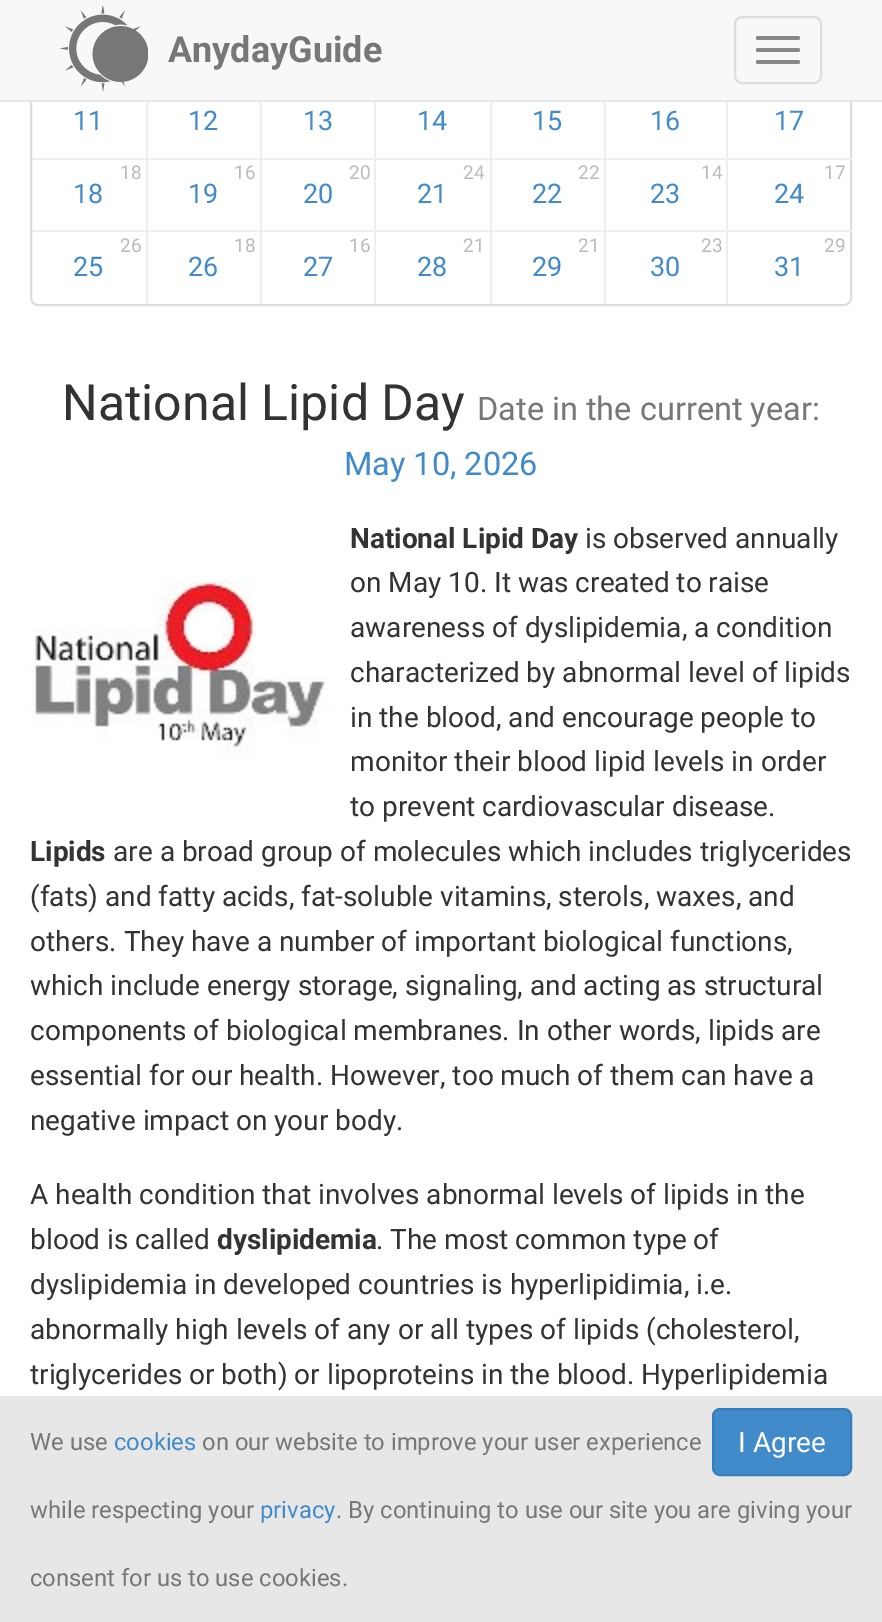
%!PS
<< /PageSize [882 1622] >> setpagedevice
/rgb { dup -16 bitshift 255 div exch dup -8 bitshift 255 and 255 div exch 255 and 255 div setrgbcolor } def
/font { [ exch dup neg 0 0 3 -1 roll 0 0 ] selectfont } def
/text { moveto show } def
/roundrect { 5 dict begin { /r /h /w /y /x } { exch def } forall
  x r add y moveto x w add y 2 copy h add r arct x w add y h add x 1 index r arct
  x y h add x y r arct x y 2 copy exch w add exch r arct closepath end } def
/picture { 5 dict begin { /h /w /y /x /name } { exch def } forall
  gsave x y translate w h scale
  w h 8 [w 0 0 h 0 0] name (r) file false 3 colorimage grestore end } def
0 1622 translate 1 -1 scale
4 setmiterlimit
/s1 { /Roboto-Bold 36 font 16#777777 rgb } def
/s2 { /Roboto-Regular 27 font 16#428BCA rgb } def
/s3 { /Roboto-Regular 19 font 16#BBBBBB rgb } def
/s4 { /Roboto-Regular 50 font 16#333333 rgb } def
/s5 { /Roboto-Regular 32.5 font 16#777777 rgb } def
/s6 { /Roboto-Regular 32.5 font 16#428BCA rgb } def
/s7 { /Roboto-Bold 28 font 16#333333 rgb } def
/s8 { /Roboto-Regular 28 font 16#333333 rgb } def
/s9 { /Roboto-Regular 23.8 font 16#777777 rgb } def
/s10 { /Roboto-Regular 23.8 font 16#428BCA rgb } def
/s11 { /Roboto-Regular 28 font 16#FFFFFF rgb } def
16#FFFFFF rgb
0 0 882 1622 rectfill
16#DDDDDD rgb
2 setlinewidth
31 -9 820 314 7 roundrect stroke
16#F8F8F8 rgb
0 0 882 100 rectfill
16#E7E7E7 rgb
0 100 882 2 rectfill
(pic1.raw) 60 6 88 86 picture
s1
(AnydayGuide) 168 62 text
16#DDDDDD rgb
735 17 86 66 7 roundrect stroke
16#888888 rgb
756 36 44 4 2 roundrect fill
756 48 44 4 2 roundrect fill
756 60 44 4 2 roundrect fill
s2
(11) 73 130 text
(12) 188 130 text
(13) 303 130 text
(14) 417 130 text
(15) 532 130 text
(16) 650 130 text
(17) 774 130 text
16#EEEEEE rgb
32 158 820 2 rectfill
32 230 820 2 rectfill
146 230 2 74 rectfill
146 102 2 130 rectfill
s3
(18) 120 179 text
s2
(18) 73 203 text
16#EEEEEE rgb
260 230 2 74 rectfill
260 102 2 130 rectfill
s3
(16) 234 179 text
s2
(19) 188 203 text
16#EEEEEE rgb
374 230 2 74 rectfill
374 102 2 130 rectfill
s3
(20) 349 179 text
s2
(20) 303 203 text
16#EEEEEE rgb
490 230 2 74 rectfill
490 102 2 130 rectfill
s3
(24) 463 179 text
s2
(21) 417 203 text
16#EEEEEE rgb
604 230 2 74 rectfill
604 102 2 130 rectfill
s3
(22) 578 179 text
s2
(22) 532 203 text
16#EEEEEE rgb
726 230 2 74 rectfill
726 102 2 130 rectfill
s3
(14) 701 179 text
s2
(23) 650 203 text
s3
(17) 824 179 text
s2
(24) 774 203 text
s3
(26) 120 252 text
s2
(25) 73 276 text
s3
(18) 234 252 text
s2
(26) 188 276 text
s3
(16) 349 252 text
s2
(27) 303 276 text
s3
(21) 463 252 text
s2
(28) 417 276 text
s3
(21) 578 252 text
s2
(29) 532 276 text
s3
(23) 701 252 text
s2
(30) 650 276 text
s3
(29) 824 252 text
s2
(31) 774 276 text
s4
(National Lipid Day) 62 420 text
s5
(Date in the current year:) 477 420 text
s6
(May 10, 2026) 344 475 text
s7
(National Lipid Day) 350 548 text
s8
(is observed annually) 585 548 text
(pic2.raw) 30 579 300 176 picture
(on May 10. It was created to raise) 350 592 text
(awareness of dyslipidemia, a condition) 350 637 text
(characterized by abnormal level of lipids) 350 682 text
(in the blood, and encourage people to) 350 727 text
(monitor their blood lipid levels in order) 350 771 text
(to prevent cardiovascular disease.) 350 816 text
s7
(Lipids) 30 861 text
s8
(are a broad group of molecules which includes triglycerides) 113 861 text
(\(fats\) and fatty acids, fat-soluble vitamins, sterols, waxes, and) 30 906 text
(others. They have a number of important biological functions,) 30 951 text
(which include energy storage, signaling, and acting as structural) 30 995 text
(components of biological membranes. In other words, lipids are) 30 1040 text
(essential for our health. However, too much of them can have a) 30 1085 text
(negative impact on your body.) 30 1130 text
(A health condition that involves abnormal levels of lipids in the) 30 1204 text
(blood is called) 30 1249 text
s7
(dyslipidemia) 217 1249 text
s8
(. The most common type of) 376 1249 text
(dyslipidemia in developed countries is hyperlipidimia, i.e.) 30 1294 text
(abnormally high levels of any or all types of lipids \(cholesterol,) 30 1339 text
(triglycerides or both\) or lipoproteins in the blood. Hyperlipidemia) 30 1384 text
16#E7E7E7 rgb
0 1396 882 226 rectfill
s9
(We use) 30 1450 text
s10
(cookies) 114 1450 text
s9
(on our website to improve your user experience) 202 1450 text
(while respecting your) 30 1518 text
s10
(privacy) 260 1518 text
s9
(. By continuing to use our site you are giving your) 336 1518 text
(consent for us to use cookies.) 30 1586 text
16#428BCA rgb
713 1409 138 66 7 roundrect gsave fill grestore
16#357EBD rgb
stroke
s11
(I Agree) 738 1452 text
showpage
